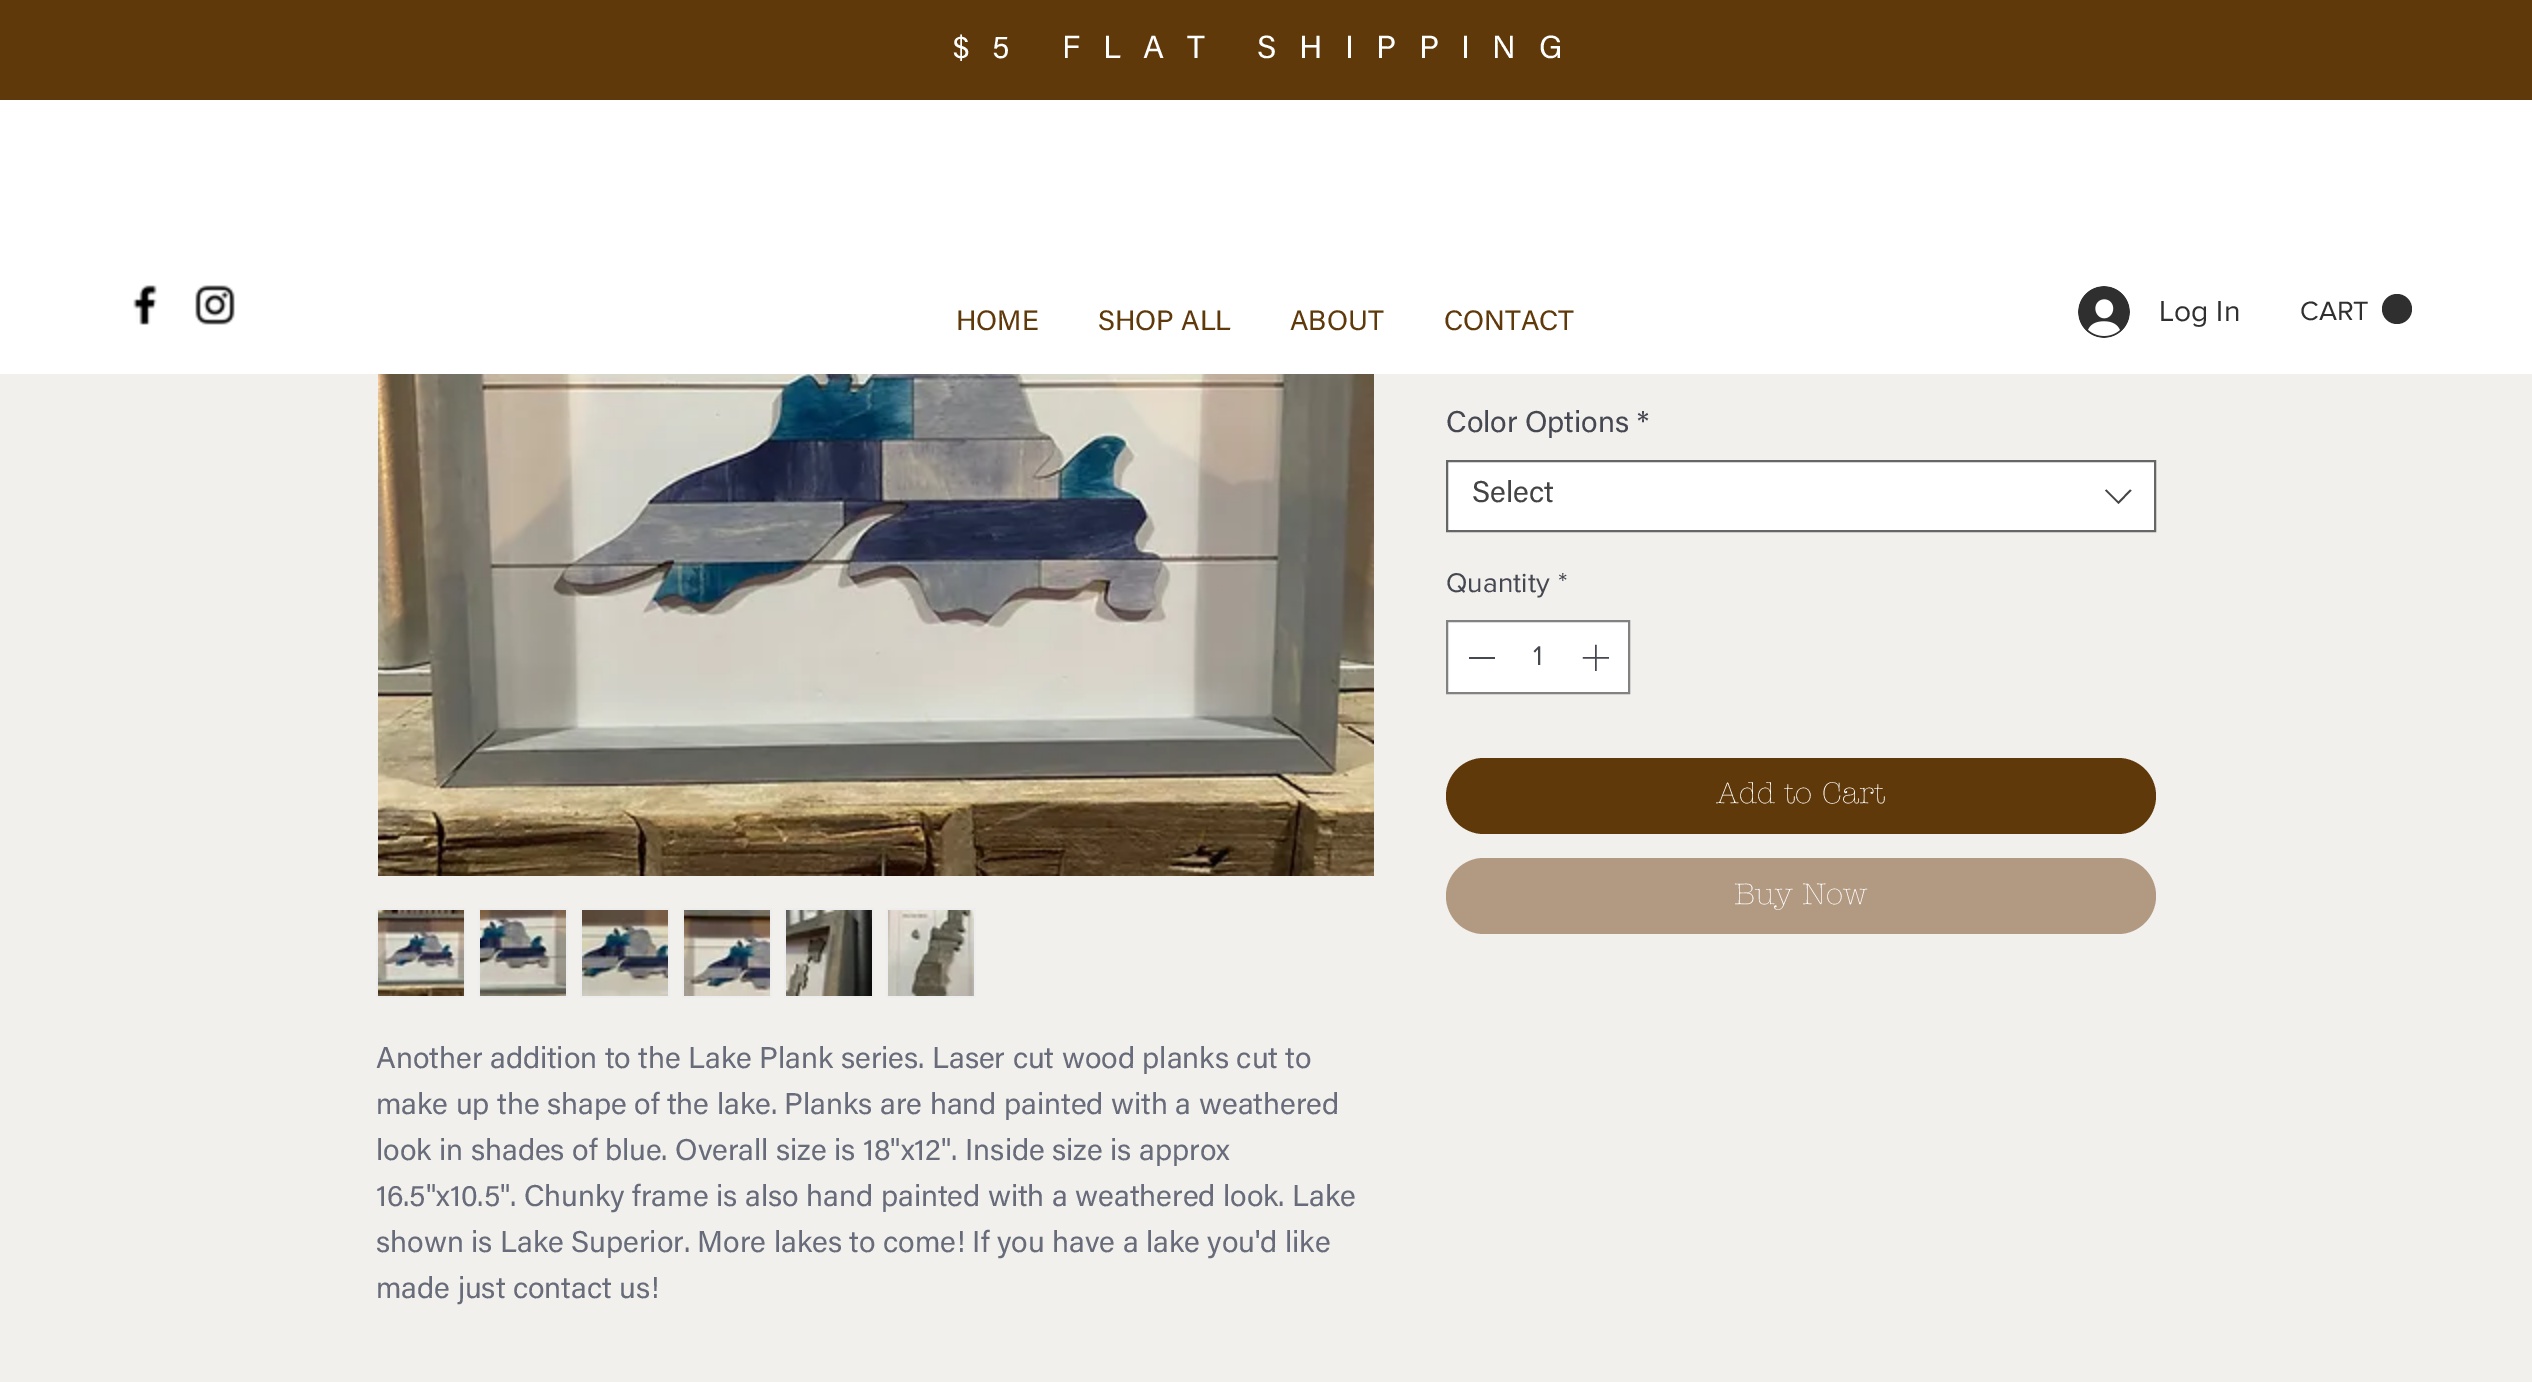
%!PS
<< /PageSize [2532 1382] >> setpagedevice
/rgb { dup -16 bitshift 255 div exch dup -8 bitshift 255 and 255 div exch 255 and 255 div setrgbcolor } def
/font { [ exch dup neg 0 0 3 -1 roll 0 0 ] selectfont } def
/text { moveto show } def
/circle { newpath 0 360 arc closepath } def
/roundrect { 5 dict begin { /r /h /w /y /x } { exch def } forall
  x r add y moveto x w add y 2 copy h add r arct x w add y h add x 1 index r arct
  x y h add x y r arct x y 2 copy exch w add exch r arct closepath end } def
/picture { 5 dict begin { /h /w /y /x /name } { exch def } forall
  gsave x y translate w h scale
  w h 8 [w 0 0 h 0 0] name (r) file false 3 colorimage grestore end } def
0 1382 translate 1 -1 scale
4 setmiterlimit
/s1 { /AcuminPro-Regular 28 font 16#60390A rgb } def
/s2 { /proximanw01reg-Regular 30 font 16#2F2F30 rgb } def
/s3 { /proximanw01reg-Regular 27.5 font 16#2F2F30 rgb } def
/s4 { /AcuminPro-Regular 30 font 16#454751 rgb } def
/s5 { /AcuminPro-Regular 30 font 16#444444 rgb } def
/s6 { /proximanw01reg-Regular 28 font 16#454751 rgb } def
/s7 { /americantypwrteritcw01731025-Light 30 font 16#FFFFFF rgb } def
/s8 { /AcuminPro-Regular 30 font 16#676B7A rgb } def
16#F1F0EC rgb
0 0 2532 1382 rectfill
16#FFFFFF rgb
0 100 2532 274 rectfill
(pic1.raw) 133 285 24 40 picture
(pic2.raw) 195 285 40 40 picture
16#60390A rgb
0 0 2532 100 rectfill
/AcuminPro-Regular 32 font
16#FFFFFF rgb
953 58 moveto 22.4 0 ($5 FLAT SHIPPING) ashow
s1
(HOME) 956 330 text
(SHOP ALL) 1098 330 text
(ABOUT) 1290 330 text
(CONTACT) 1444 330 text
(pic3.raw) 2078 286 52 52 picture
s2
(Log In) 2159 321 text
2397 309 15 circle fill
s3
(CART) 2300 320 text
s4
(Color Options) 1446 432 text
(*) 1637 432 text
16#FFFFFF rgb
1447 461 moveto 2155 461 lineto 2155 531 lineto 1447 531 lineto closepath gsave fill grestore
16#666666 rgb
2 setlinewidth
stroke
s5
(Select) 1472 502 text
2130 489.5 moveto 2131.5 490.5 lineto 2118.5 504 lineto 2105 490.5 lineto 2106.5 489.5 lineto 2118.5 501.5 lineto closepath eofill
s6
(Quantity) 1446 592 text
(*) 1558 592 text
16#FFFFFF rgb
1447 621 moveto 1629 621 lineto 1629 693 lineto 1447 693 lineto closepath gsave fill grestore
16#828283 rgb
stroke
16#454751 rgb
1469 657 26 2 rectfill
(1) 1533 665 text
(pic4.raw) 1582 644 27 27 picture
16#60390A rgb
1446 758 710 76 38 roundrect fill
s7
(Add to Cart) 1716 803 text
16#B29981 rgb
1446 858 710 76 38 roundrect fill
s7
(Buy Now) 1734 904 text
(pic5.raw) 378 374 996 502 picture
16#EDEDEE rgb
376 908 90 90 rectfill
(pic6.raw) 378 910 86 86 picture
478 908 90 90 rectfill
(pic7.raw) 480 910 86 86 picture
580 908 90 90 rectfill
(pic8.raw) 582 910 86 86 picture
682 908 90 90 rectfill
(pic9.raw) 684 910 86 86 picture
784 908 90 90 rectfill
(pic10.raw) 786 910 86 86 picture
886 908 90 90 rectfill
(pic11.raw) 888 910 86 86 picture
s8
(Another addition to the Lake Plank series. Laser cut wood planks cut to) 376 1068 text
(make up the shape of the lake. Planks are hand painted with a weathered) 376 1114 text
(look in shades of blue. Overall size is 18"x12". Inside size is approx) 376 1160 text
(16.5"x10.5". Chunky frame is also hand painted with a weathered look. Lake) 376 1206 text
(shown is Lake Superior. More lakes to come! If you have a lake you'd like) 376 1252 text
(made just contact us!) 376 1298 text
showpage
